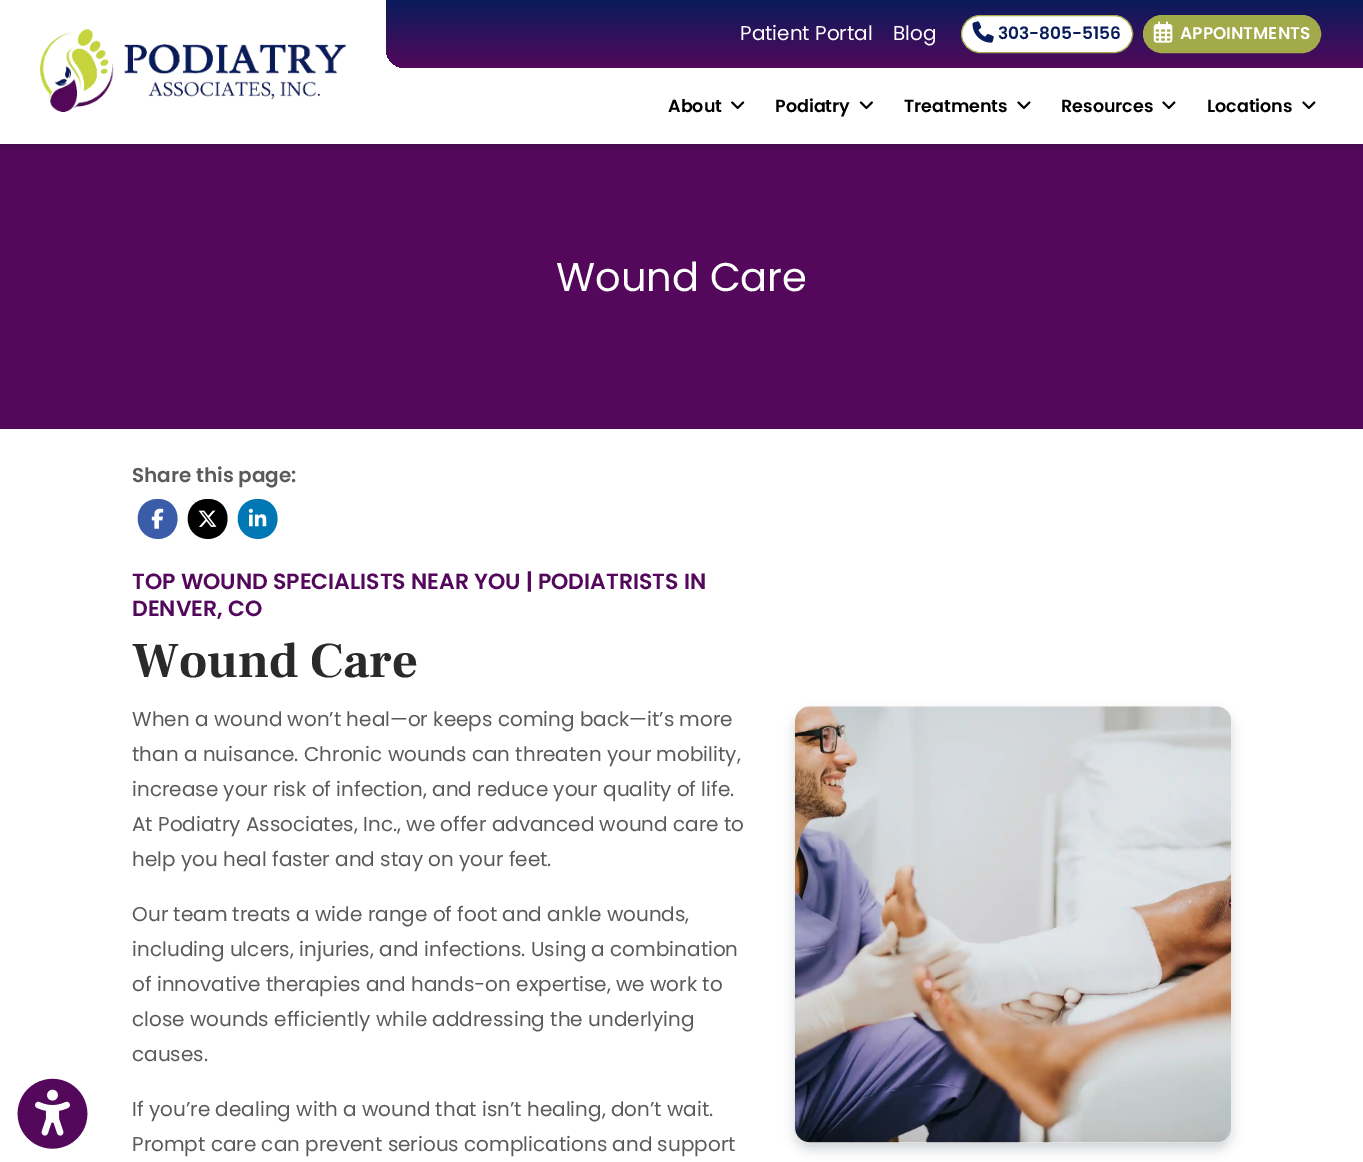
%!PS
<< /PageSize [1363 1162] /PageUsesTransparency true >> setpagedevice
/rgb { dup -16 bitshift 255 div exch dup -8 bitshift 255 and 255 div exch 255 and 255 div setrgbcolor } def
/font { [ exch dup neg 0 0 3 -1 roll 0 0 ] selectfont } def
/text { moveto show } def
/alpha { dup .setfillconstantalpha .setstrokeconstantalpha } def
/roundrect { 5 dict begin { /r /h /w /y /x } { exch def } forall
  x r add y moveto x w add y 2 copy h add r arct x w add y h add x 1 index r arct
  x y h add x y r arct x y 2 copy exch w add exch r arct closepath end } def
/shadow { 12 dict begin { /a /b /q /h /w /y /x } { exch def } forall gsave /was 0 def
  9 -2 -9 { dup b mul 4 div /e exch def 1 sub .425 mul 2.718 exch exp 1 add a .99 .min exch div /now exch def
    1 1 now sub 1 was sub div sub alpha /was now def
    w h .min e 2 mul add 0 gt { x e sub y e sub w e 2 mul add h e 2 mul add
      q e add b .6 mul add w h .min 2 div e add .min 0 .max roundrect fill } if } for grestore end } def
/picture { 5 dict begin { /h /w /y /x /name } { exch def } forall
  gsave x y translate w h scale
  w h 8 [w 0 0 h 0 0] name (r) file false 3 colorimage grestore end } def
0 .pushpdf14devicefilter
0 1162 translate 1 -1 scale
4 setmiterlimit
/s1 { /Poppins-Regular 20 font 16#FFFFFF rgb } def
/s2 { /Poppins-SemiBold 17 font 16#091C5B rgb } def
/s3 { /Poppins-SemiBold 17 font 16#FFFFFF rgb } def
/s4 { /Poppins-SemiBold 17.5 font 16#000000 rgb } def
/s5 { /Poppins-Regular 40 font 16#FFFFFF rgb } def
/s6 { /Poppins-SemiBold 20 font 16#5A5A5A rgb } def
/s7 { /Poppins-SemiBold 22 font 16#53085B rgb } def
/s8 { /FrankRuhlLibre-Bold 50 font 16#2A2A2A rgb } def
/s9 { /Poppins-Regular 20 font 16#5A5A5A rgb } def
16#FFFFFF rgb
0 0 1363 1162 rectfill
16#53085B rgb
0 144 1363 285 rectfill
16#000000 rgb
0 3 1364 143 0 5 0.19 shadow
16#FFFFFF rgb
0 0 1363 144 rectfill
(pic1.raw) 40 29 306 83 picture
gsave 386 0 moveto 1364 0 lineto 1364 68 lineto 405 68 lineto 394.5 68 386 59.5 386 49 curveto closepath clip newpath
<< /ShadingType 2 /ColorSpace /DeviceRGB /Coords [875 0 875 68] /Extend [true true] /Function << /FunctionType 2 /Domain [0 1] /C0 [0.035 0.11 0.357] /C1 [0.325 0.031 0.357] /N 1 >> >> shfill grestore
s1
(Patient Portal) 740 40 text
(Blog) 893 40 text
961.5 15.5 171 37 18.5 roundrect gsave fill grestore
16#A2AA49 rgb
stroke
(pic2.raw) 972 21 22 22 picture
s2
(303-805-5156) 998 39 text
16#A2AA49 rgb
1143.5 15.5 177 37 18.5 roundrect gsave fill grestore
stroke
(pic3.raw) 1153 21 20 22 picture
s3
(APPOINTMENTS) 1180 39 text
s4
(About) 668 112 text
(pic4.raw) 731 101 14 8 picture
(Podiatry) 775 112 text
(pic5.raw) 859 101 14 8 picture
(Treatments) 904 112 text
(pic6.raw) 1017 101 14 8 picture
(Resources) 1061 112 text
(pic6.raw) 1162 101 14 8 picture
(Locations) 1207 112 text
(pic6.raw) 1302 101 14 8 picture
(pic7.raw) 17 1078 71 71 picture
s5
(Wound Care) 556 291 text
s6
(Share this page:) 132 482 text
16#3B5CA9 rgb
158 539 moveto 184 538 184 499 158 499 curveto 131 499 131 538 158 539 curveto closepath fill
(pic8.raw) 151 508 13 21 picture
16#000000 rgb
208 539 moveto 234 538 234 499 208 499 curveto 181 499 181 538 208 539 curveto closepath fill
(pic9.raw) 198 510 19 17 picture
16#0077B5 rgb
258 539 moveto 284 538 284 499 258 499 curveto 231 499 231 538 258 539 curveto closepath fill
(pic10.raw) 248 508 19 19 picture
s7
(TOP WOUND SPECIALISTS NEAR YOU | PODIATRISTS IN) 132 589 text
(DENVER, CO) 132 616 text
s8
(Wound Care) 132 677 text
s9
(When a wound won’t heal—or keeps coming back—it’s more) 132 726 text
(than a nuisance. Chronic wounds can threaten your mobility,) 132 761 text
(increase your risk of infection, and reduce your quality of life.) 132 796 text
(At Podiatry Associates, Inc., we offer advanced wound care to) 132 831 text
(help you heal faster and stay on your feet.) 132 866 text
(Our team treats a wide range of foot and ankle wounds,) 132 921 text
(including ulcers, injuries, and infections. Using a combination) 132 956 text
(of innovative therapies and hands-on expertise, we work to) 132 991 text
(close wounds efficiently while addressing the underlying) 132 1026 text
(causes.) 132 1061 text
(If you’re dealing with a wound that isn’t healing, don’t wait.) 132 1116 text
(Prompt care can prevent serious complications and support) 132 1151 text
16#D1D3D7 rgb
795 713 436 436 15 6 1 shadow
(pic11.raw) 795 706 437 437 picture
.poppdf14devicefilter showpage
